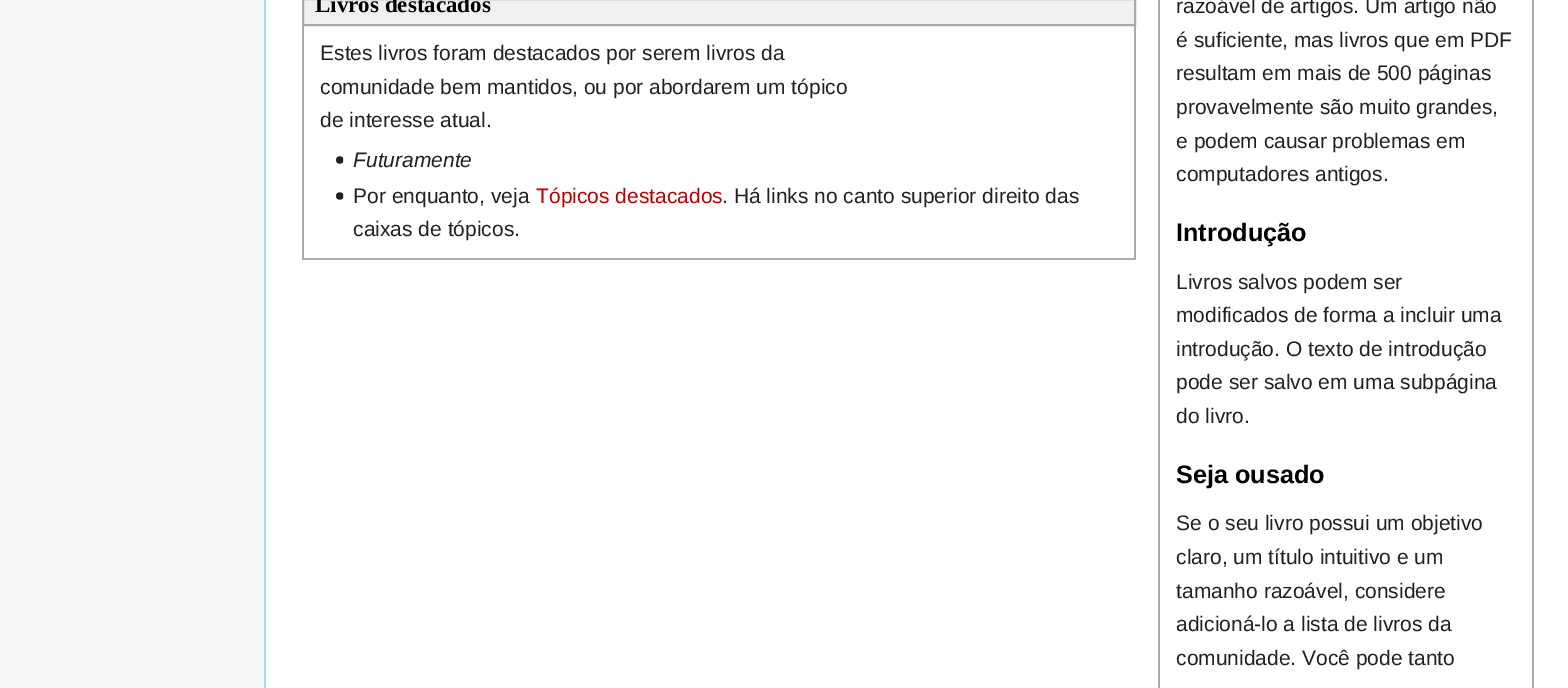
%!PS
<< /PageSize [1568 688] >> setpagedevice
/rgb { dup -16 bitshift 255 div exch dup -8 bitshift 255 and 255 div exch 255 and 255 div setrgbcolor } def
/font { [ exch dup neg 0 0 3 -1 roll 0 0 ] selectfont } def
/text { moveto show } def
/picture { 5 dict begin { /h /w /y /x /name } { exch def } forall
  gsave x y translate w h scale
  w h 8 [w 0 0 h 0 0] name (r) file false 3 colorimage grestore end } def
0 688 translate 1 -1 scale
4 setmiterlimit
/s1 { /LiberationSerif-Bold 23 font 16#000000 rgb } def
/s2 { /LiberationSans-Regular 21 font 16#202122 rgb } def
/s3 { /LiberationSans-Italic 21 font 16#202122 rgb } def
/s4 { /LiberationSans-Regular 21 font 16#BA0000 rgb } def
/s5 { /LiberationSans-Bold 25.25 font 16#000000 rgb } def
16#F6F6F6 rgb
0 0 1568 688 rectfill
16#FFFFFF rgb
266 0 1302 688 rectfill
16#A7D7F9 rgb
264 0 2 688 rectfill
16#F0F0F0 rgb
303 -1 moveto 1135 -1 lineto 1135 25 lineto 303 25 lineto closepath gsave fill grestore
16#AAAAAA rgb
2 setlinewidth
stroke
s1
(Livros destacados) 315 12 text
16#AAAAAA rgb
1134 26 2 234 rectfill
302 258 834 2 rectfill
302 26 2 234 rectfill
s2
(Estes livros foram destacados por serem livros da) 320 60 text
(comunidade bem mantidos, ou por abordarem um tópico) 320 94 text
(de interesse atual.) 320 127 text
(pic1.raw) 336 156 8 8 picture
s3
(Futuramente) 353 167 text
(pic1.raw) 336 192 8 8 picture
s2
(Por enquanto, veja) 353 203 text
s4
(Tópicos destacados) 536 203 text
s2
(. Há links no canto superior direito das) 722 203 text
(caixas de tópicos.) 353 236 text
16#AAAAAA rgb
1532 0 2 688 rectfill
1158 0 2 688 rectfill
s2
(razoável de artigos. Um artigo não) 1176 13 text
(é suficiente, mas livros que em PDF) 1176 47 text
(resultam em mais de 500 páginas) 1176 80 text
(provavelmente são muito grandes,) 1176 114 text
(e podem causar problemas em) 1176 148 text
(computadores antigos.) 1176 181 text
s5
(Introdução) 1176 241 text
s2
(Livros salvos podem ser) 1176 289 text
(modificados de forma a incluir uma) 1176 322 text
(introdução. O texto de introdução) 1176 356 text
(pode ser salvo em uma subpágina) 1176 389 text
(do livro.) 1176 423 text
s5
(Seja ousado) 1176 483 text
s2
(Se o seu livro possui um objetivo) 1176 530 text
(claro, um título intuitivo e um) 1176 564 text
(tamanho razoável, considere) 1176 598 text
(adicioná-lo a lista de livros da) 1176 631 text
(comunidade. Você pode tanto) 1176 665 text
showpage
